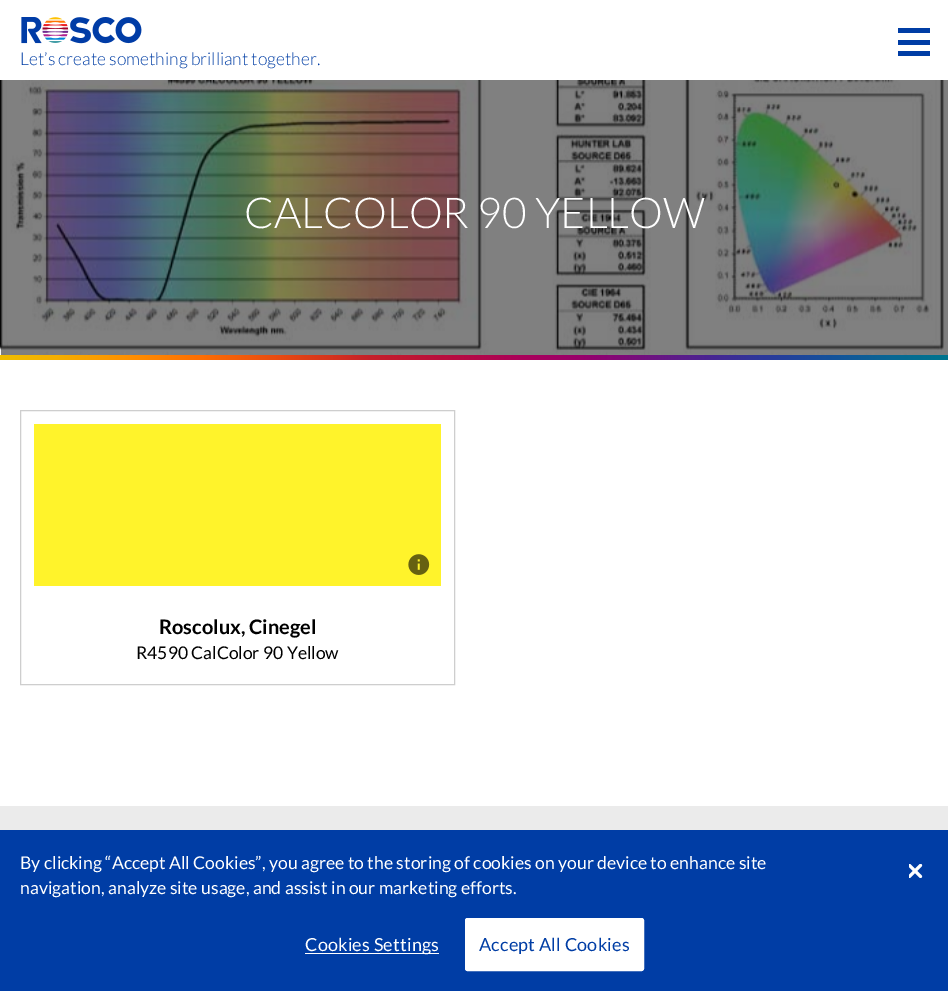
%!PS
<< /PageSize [948 991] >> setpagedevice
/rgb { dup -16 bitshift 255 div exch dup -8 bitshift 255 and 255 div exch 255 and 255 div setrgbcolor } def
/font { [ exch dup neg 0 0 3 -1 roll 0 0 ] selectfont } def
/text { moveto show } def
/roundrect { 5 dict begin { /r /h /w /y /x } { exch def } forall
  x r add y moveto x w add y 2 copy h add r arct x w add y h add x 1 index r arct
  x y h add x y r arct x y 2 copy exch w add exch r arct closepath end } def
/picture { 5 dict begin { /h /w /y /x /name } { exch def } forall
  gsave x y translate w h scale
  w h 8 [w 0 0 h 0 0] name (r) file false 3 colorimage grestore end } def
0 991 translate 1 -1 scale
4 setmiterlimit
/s1 { /Lato-Light 17.5 font 16#003DA5 rgb } def
/s2 { /Lato-Light 42.5 font 16#FFFFFF rgb } def
/s3 { /Lato-Bold 20 font 16#000000 rgb } def
/s4 { /Lato-Regular 17.5 font 16#000000 rgb } def
/s5 { /Lato-Regular 17.6 font 16#FFFFFF rgb } def
16#FFFFFF rgb
0 0 948 991 rectfill
16#003DA5 rgb
898 28 32 5 rectfill
898 40 32 5 rectfill
898 51 32 5 rectfill
(pic1.raw) 21 17 121 27 picture
s1
(Let’s create something brilliant together.) 20 65 text
(pic2.raw) 0 80 948 275 picture
s2
(CALCOLOR 90 YELLOW) 244 228 text
gsave 0 355 moveto 948 355 lineto 948 360 lineto 0 360 lineto closepath clip newpath
<< /ShadingType 2 /ColorSpace /DeviceRGB /Coords [0 358 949 358] /Extend [true true] /Function << /FunctionType 3 /Domain [0 1] /Functions [<< /FunctionType 2 /Domain [0 1] /C0 [0.941 0.745 0] /C1 [0.961 0.686 0] /N 1 >> << /FunctionType 2 /Domain [0 1] /C0 [0.961 0.686 0] /C1 [1 0.573 0] /N 1 >> << /FunctionType 2 /Domain [0 1] /C0 [1 0.573 0] /C1 [0.996 0.435 0.012] /N 1 >> << /FunctionType 2 /Domain [0 1] /C0 [0.996 0.435 0.012] /C1 [0.918 0.298 0.063] /N 1 >> << /FunctionType 2 /Domain [0 1] /C0 [0.918 0.298 0.063] /C1 [0.835 0.196 0.114] /N 1 >> << /FunctionType 2 /Domain [0 1] /C0 [0.835 0.196 0.114] /C1 [0.776 0.125 0.165] /N 1 >> << /FunctionType 2 /Domain [0 1] /C0 [0.776 0.125 0.165] /C1 [0.722 0.051 0.243] /N 1 >> << /FunctionType 2 /Domain [0 1] /C0 [0.722 0.051 0.243] /C1 [0.667 0 0.353] /N 1 >> << /FunctionType 2 /Domain [0 1] /C0 [0.667 0 0.353] /C1 [0.6 0 0.416] /N 1 >> << /FunctionType 2 /Domain [0 1] /C0 [0.6 0 0.416] /C1 [0.537 0.02 0.455] /N 1 >> << /FunctionType 2 /Domain [0 1] /C0 [0.537 0.02 0.455] /C1 [0.302 0.133 0.565] /N 1 >> << /FunctionType 2 /Domain [0 1] /C0 [0.302 0.133 0.565] /C1 [0.176 0.216 0.608] /N 1 >> << /FunctionType 2 /Domain [0 1] /C0 [0.176 0.216 0.608] /C1 [0.082 0.314 0.608] /N 1 >> << /FunctionType 2 /Domain [0 1] /C0 [0.082 0.314 0.608] /C1 [0.024 0.416 0.573] /N 1 >> << /FunctionType 2 /Domain [0 1] /C0 [0.024 0.416 0.573] /C1 [0 0.459 0.557] /N 1 >>] /Bounds [0.06 0.13 0.21 0.29 0.35 0.39 0.47 0.55 0.61 0.64 0.74 0.8 0.87 0.95] /Encode [0 1 0 1 0 1 0 1 0 1 0 1 0 1 0 1 0 1 0 1 0 1 0 1 0 1 0 1 0 1] >> >> shfill grestore
16#CECECE rgb
20.5 410.5 434 274 rectstroke
16#FFF32B rgb
34 424 407 162 rectfill
(pic3.raw) 408 554 22 21 picture
s3
(Roscolux, Cinegel) 159 634 text
s4
(R4590 CalColor 90 Yellow) 136 659 text
16#EBEBEB rgb
0 806 948 24 rectfill
16#003DA5 rgb
0 830 948 161 rectfill
s5
(By clicking “Accept All Cookies”, you agree to the storing of cookies on your device to enhance site) 20 869 text
(navigation, analyze site usage, and assist in our marketing efforts.) 20 894 text
(pic4.raw) 909 864 14 14 picture
305 953 134 1 rectfill
/Lato-Regular 18 font
305 951 moveto 0.2 0 (Cookies Settings) ashow
465.5 918.5 178 52 2 roundrect gsave fill grestore
stroke
16#003DA5 rgb
479 951 moveto 0.2 0 (Accept All Cookies) ashow
showpage
